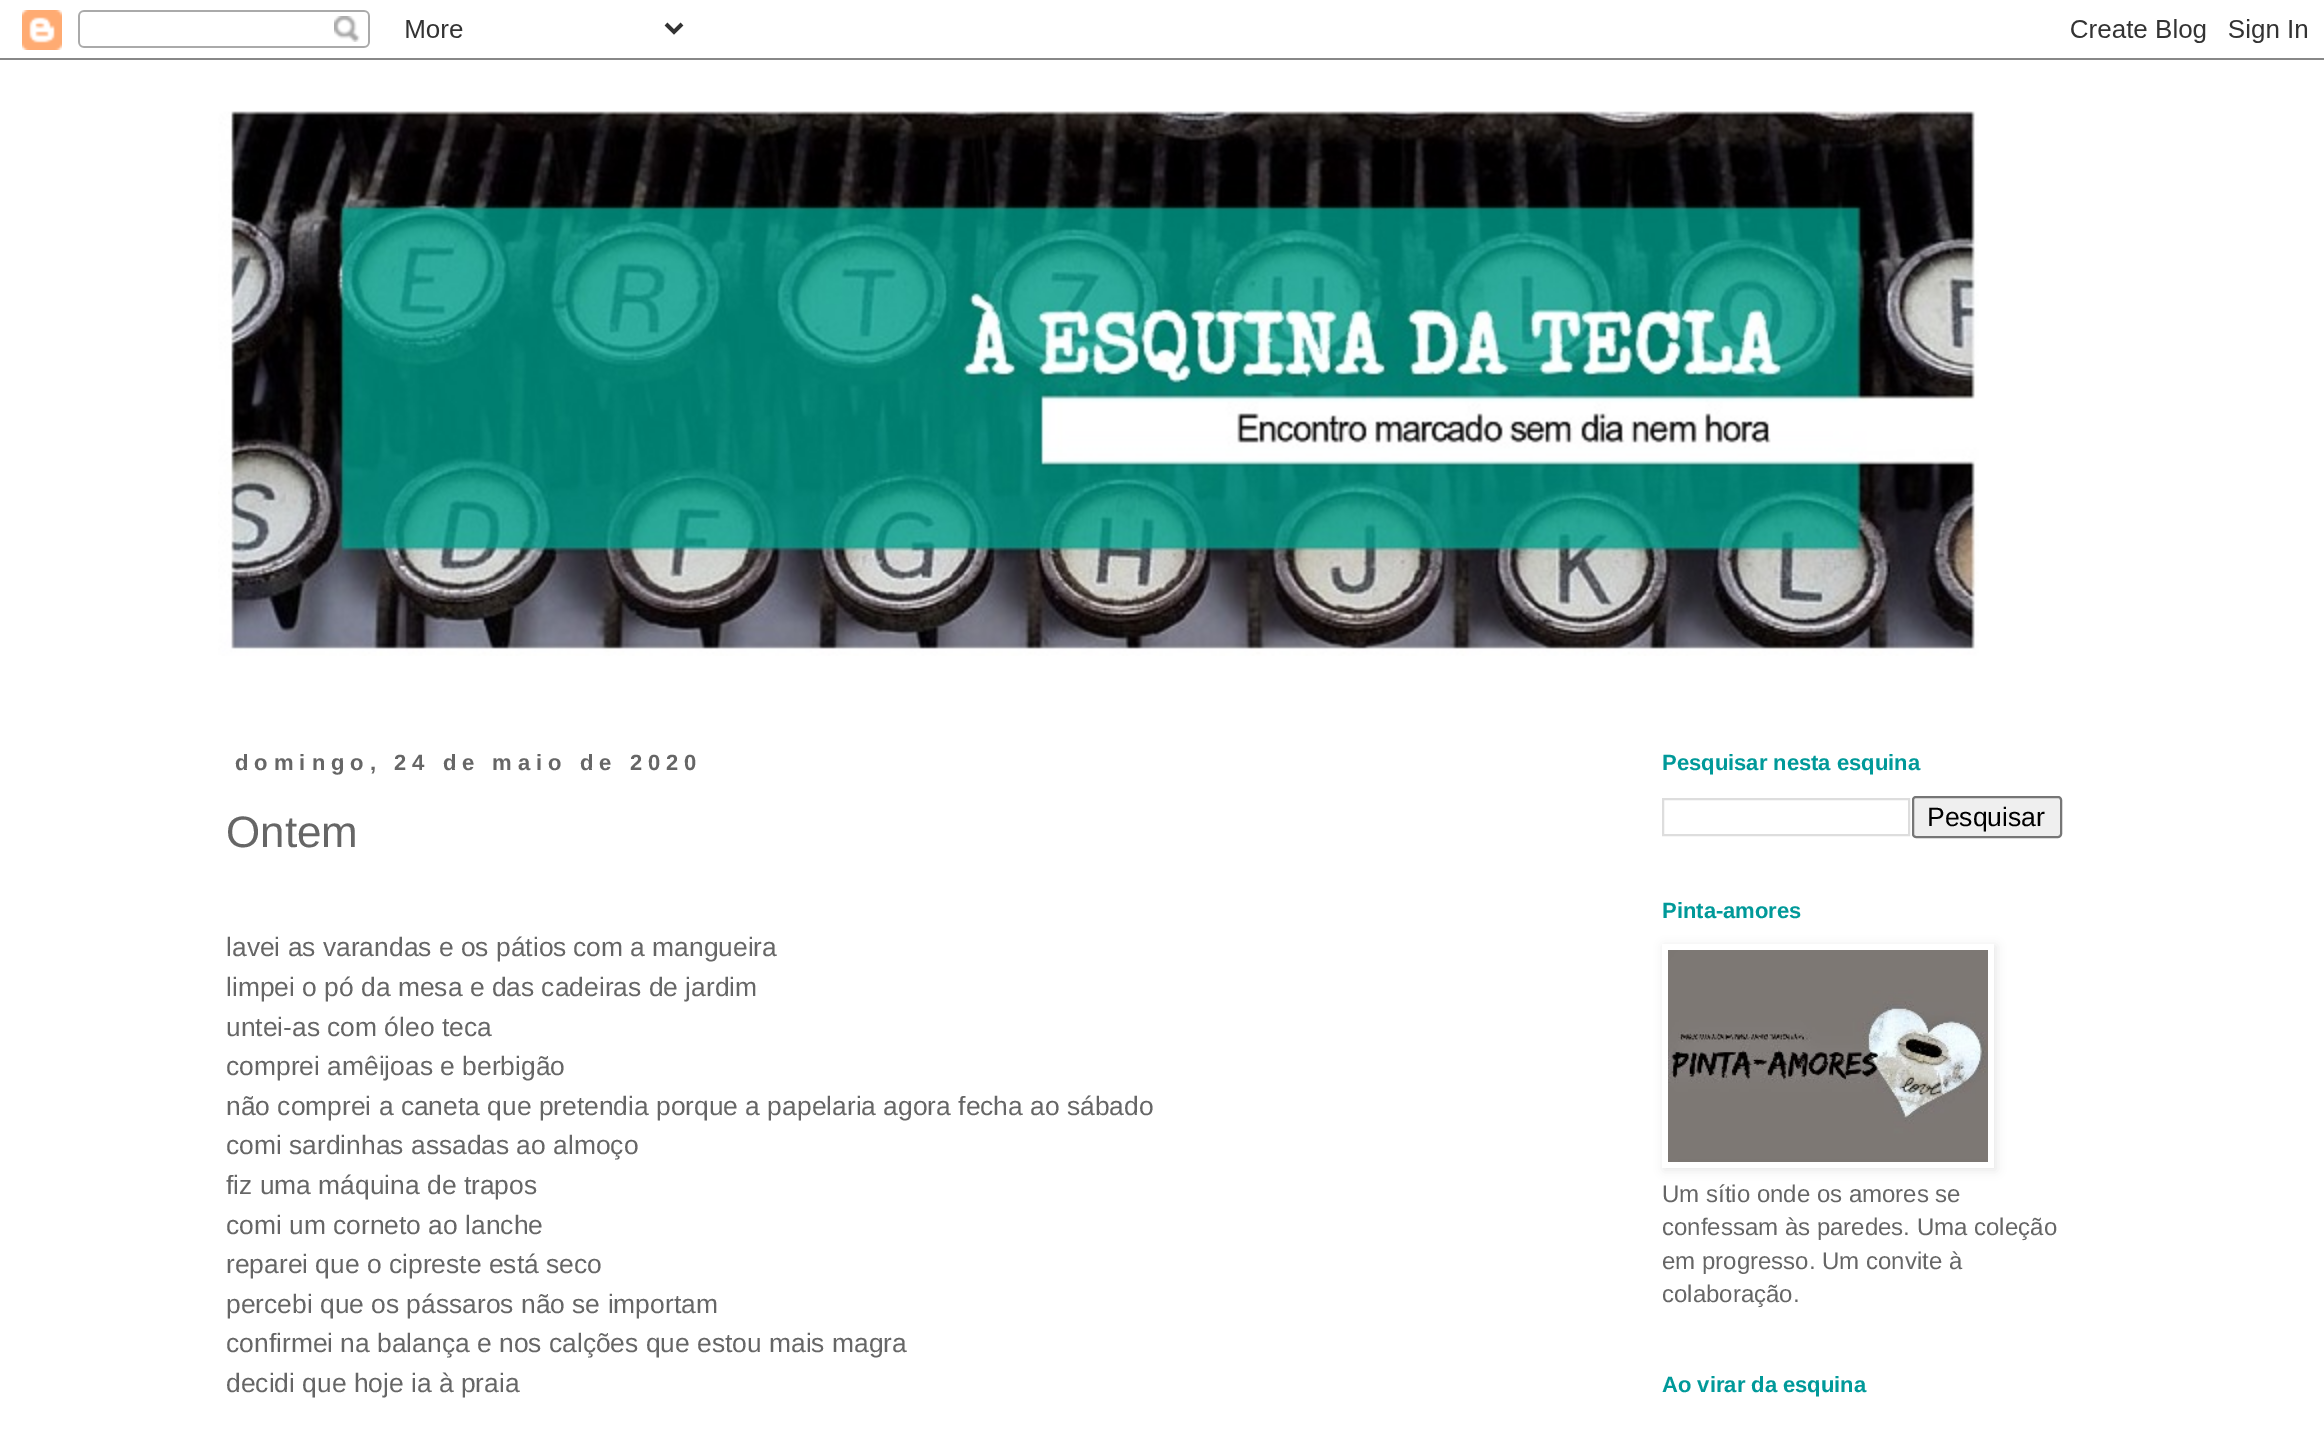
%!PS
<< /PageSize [2324 1431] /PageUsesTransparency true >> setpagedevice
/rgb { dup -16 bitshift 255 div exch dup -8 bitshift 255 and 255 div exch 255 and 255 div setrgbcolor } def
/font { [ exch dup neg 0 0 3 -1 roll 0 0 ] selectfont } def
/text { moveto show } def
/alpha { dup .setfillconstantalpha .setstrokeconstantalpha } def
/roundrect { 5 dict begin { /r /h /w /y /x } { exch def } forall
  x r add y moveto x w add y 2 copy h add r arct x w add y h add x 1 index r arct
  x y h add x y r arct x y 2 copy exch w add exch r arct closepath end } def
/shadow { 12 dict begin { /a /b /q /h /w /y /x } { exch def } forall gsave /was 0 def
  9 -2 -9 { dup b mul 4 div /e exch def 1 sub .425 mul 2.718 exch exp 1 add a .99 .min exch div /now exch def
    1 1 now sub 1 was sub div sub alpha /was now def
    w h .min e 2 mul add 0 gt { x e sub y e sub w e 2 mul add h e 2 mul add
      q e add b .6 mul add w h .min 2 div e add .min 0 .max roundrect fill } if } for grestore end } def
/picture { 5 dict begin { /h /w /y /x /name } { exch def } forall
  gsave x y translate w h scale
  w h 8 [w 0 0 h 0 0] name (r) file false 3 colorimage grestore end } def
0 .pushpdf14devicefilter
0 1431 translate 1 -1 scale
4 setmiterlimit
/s1 { /LiberationSans-Regular 44 font 16#666666 rgb } def
/s2 { /LiberationSans-Regular 26.4 font 16#666666 rgb } def
/s3 { /LiberationSans-Bold 22 font 16#009999 rgb } def
/s4 { /LiberationSans-Regular 26.5 font 16#000000 rgb } def
/s5 { /LiberationSans-Regular 24 font 16#666666 rgb } def
16#FFFFFF rgb
0 0 2324 1431 rectfill
(pic1.raw) 0 10 2324 50 picture
(pic2.raw) 218 111 1761 545 picture
/LiberationSans-Bold 22 font
16#666666 rgb
235 770 moveto 6 0 (domingo, 24 de maio de 2020) ashow
s1
(Ontem) 226 847 text
s2
(lavei as varandas e os pátios) 226 956 text
(com a mangueira) 573 956 text
(limpei o pó da mesa e das cadeiras de jardim) 226 996 text
(untei-as com óleo teca) 226 1036 text
(comprei amêijoas e berbigão) 226 1075 text
(não comprei a caneta que pretendia porque a papelaria agora fecha ao sábado) 226 1115 text
(comi sardinhas assadas ao almoço) 226 1154 text
(fiz uma máquina de trapos) 226 1194 text
(comi um corneto ao lanche) 226 1234 text
(reparei que o cipreste está seco) 226 1273 text
(percebi que os pássaros não se importam) 226 1313 text
(confirmei na balança e nos calções que estou mais magra) 226 1352 text
(decidi que hoje ia à praia) 226 1392 text
s3
(Pesquisar nesta esquina) 1662 770 text
16#DDDDDD rgb
2 setlinewidth
1663 799 246 36 rectstroke
16#EFEFEF rgb
1913 797 148 40 3 roundrect gsave fill grestore
16#767676 rgb
stroke
s4
(Pesquisar) 1927 826 text
s3
(Pinta-amores) 1662 918 text
gsave
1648 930 moveto 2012 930 lineto 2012 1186 lineto 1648 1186 lineto closepath 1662 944 moveto 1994 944 lineto 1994 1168 lineto 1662 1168 lineto closepath eoclip newpath
16#000000 rgb
1664 946 332 224 0 5 0.1 shadow
grestore
(pic3.raw) 1668 950 320 212 picture
s5
(Um sítio onde os amores se) 1662 1202 text
(confessam às paredes. Uma coleção) 1662 1235 text
(em progresso. Um convite à) 1662 1269 text
(colaboração.) 1662 1302 text
s3
(Ao virar da esquina) 1662 1392 text
.poppdf14devicefilter showpage
